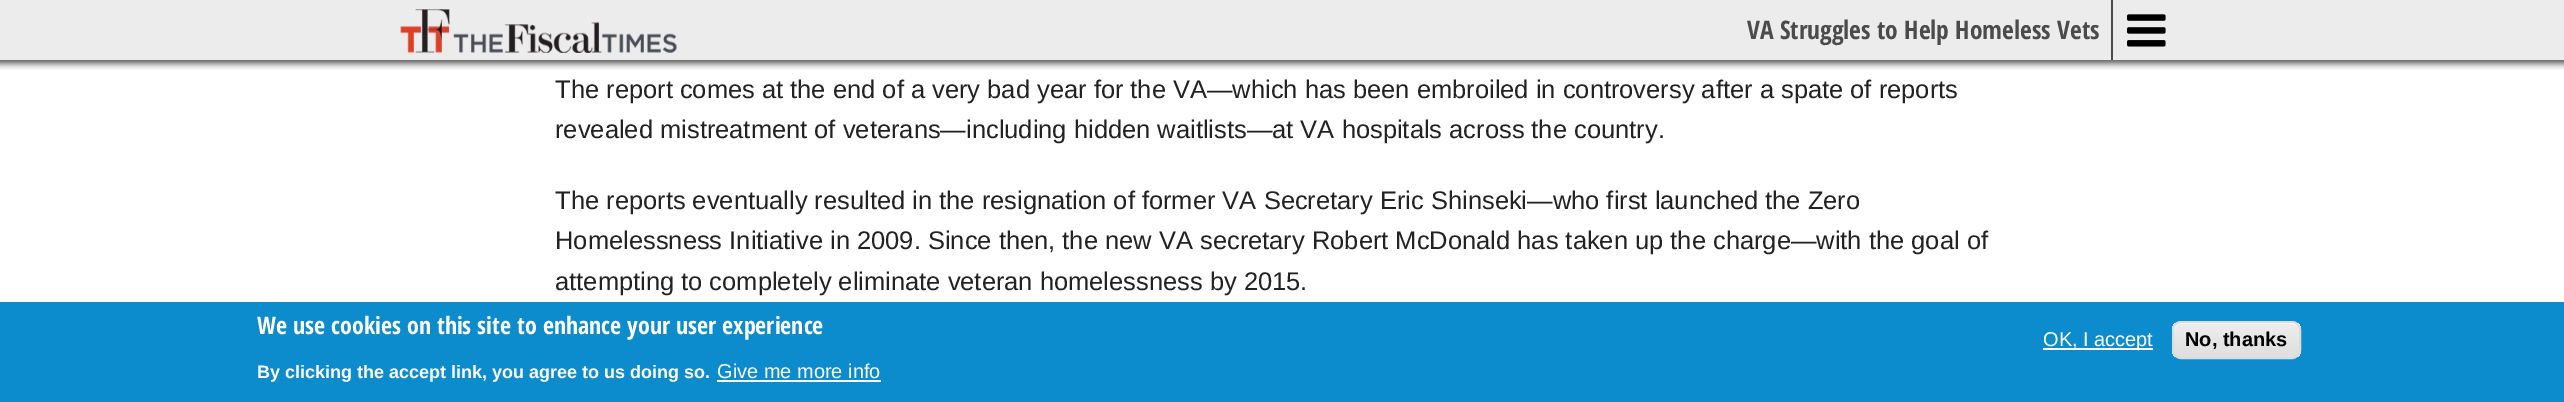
%!PS
<< /PageSize [2564 402] >> setpagedevice
/rgb { dup -16 bitshift 255 div exch dup -8 bitshift 255 and 255 div exch 255 and 255 div setrgbcolor } def
/font { [ exch dup neg 0 0 3 -1 roll 0 0 ] selectfont } def
/text { moveto show } def
/roundrect { 5 dict begin { /r /h /w /y /x } { exch def } forall
  x r add y moveto x w add y 2 copy h add r arct x w add y h add x 1 index r arct
  x y h add x y r arct x y 2 copy exch w add exch r arct closepath end } def
/picture { 5 dict begin { /h /w /y /x /name } { exch def } forall
  gsave x y translate w h scale
  w h 8 [w 0 0 h 0 0] name (r) file false 3 colorimage grestore end } def
0 402 translate 1 -1 scale
4 setmiterlimit
/s1 { /OpenSansCondensed-Bold 25.5 font 16#4B4B4B rgb } def
/s2 { /LiberationSans-Regular 25.5 font 16#222222 rgb } def
/s3 { /OpenSansCondensed-Bold 24 font 16#FFFFFF rgb } def
/s4 { /LiberationSans-Bold 18 font 16#FFFFFF rgb } def
/s5 { /LiberationSans-Regular 20 font 16#FFFFFF rgb } def
/s6 { /LiberationSans-Bold 20 font 16#000000 rgb } def
16#FFFFFF rgb
0 0 2564 402 rectfill
16#ECECEC rgb
0 0 2564 60 rectfill
(pic1.raw) 400 9 277 44 picture
16#4B4B4B rgb
2111 0 2 60 rectfill
s1
(VA Struggles to Help Homeless Vets) 1747 39 text
(pic2.raw) 2127 14 39 33 picture
(pic3.raw) 0 60 2564 10 picture
s2
(The report comes at the end of a very bad year for the VA—which has been embroiled in controversy after a spate of reports) 555 98 text
(revealed mistreatment of veterans—including hidden waitlists—at VA hospitals across the country.) 555 138 text
(The reports eventually resulted in the resignation of former VA Secretary Eric Shinseki—who first launched the Zero) 555 209 text
(Homelessness Initiative in 2009. Since then, the new VA secretary Robert McDonald has taken up the charge—with the goal of) 555 249 text
(attempting to completely eliminate veteran homelessness by 2015.) 555 290 text
16#0C8CCC rgb
0 302 2564 100 rectfill
s3
(We use cookies on this site to enhance your user experience) 257 334 text
s4
(By clicking the accept link, you agree to us doing so.) 257 378 text
s5
(Give me more info) 717 378 text
717 380 164 2 rectfill
2043 348 110 2 rectfill
(OK, I accept) 2043 346 text
gsave
2172 321 129 38 9 roundrect clip newpath
gsave 2172 323 moveto 2301 323 lineto 2301 357 lineto 2172 357 lineto closepath clip newpath
<< /ShadingType 2 /ColorSpace /DeviceRGB /Coords [2237 323 2237 357] /Extend [true true] /Function << /FunctionType 3 /Domain [0 1] /Functions [<< /FunctionType 2 /Domain [0 1] /C0 [0.929 0.929 0.929] /C1 [0.929 0.929 0.929] /N 1 >> << /FunctionType 2 /Domain [0 1] /C0 [0.929 0.929 0.929] /C1 [0.875 0.875 0.875] /N 1 >>] /Bounds [0.05] /Encode [0 1 0 1] >> >> shfill grestore
grestore
2181 324 moveto 2292 324 lineto 2296 324 2300 327 2300 332 curveto 2300 318 2282 323 2274 323 curveto 2200 323 lineto 2192 323 2174 318 2174 332 curveto 2174 327 2177 324 2181 324 curveto closepath fill
16#DCDCDC rgb
2 setlinewidth
2173 322 127 36 8 roundrect stroke
s6
(No, thanks) 2185 346 text
showpage
